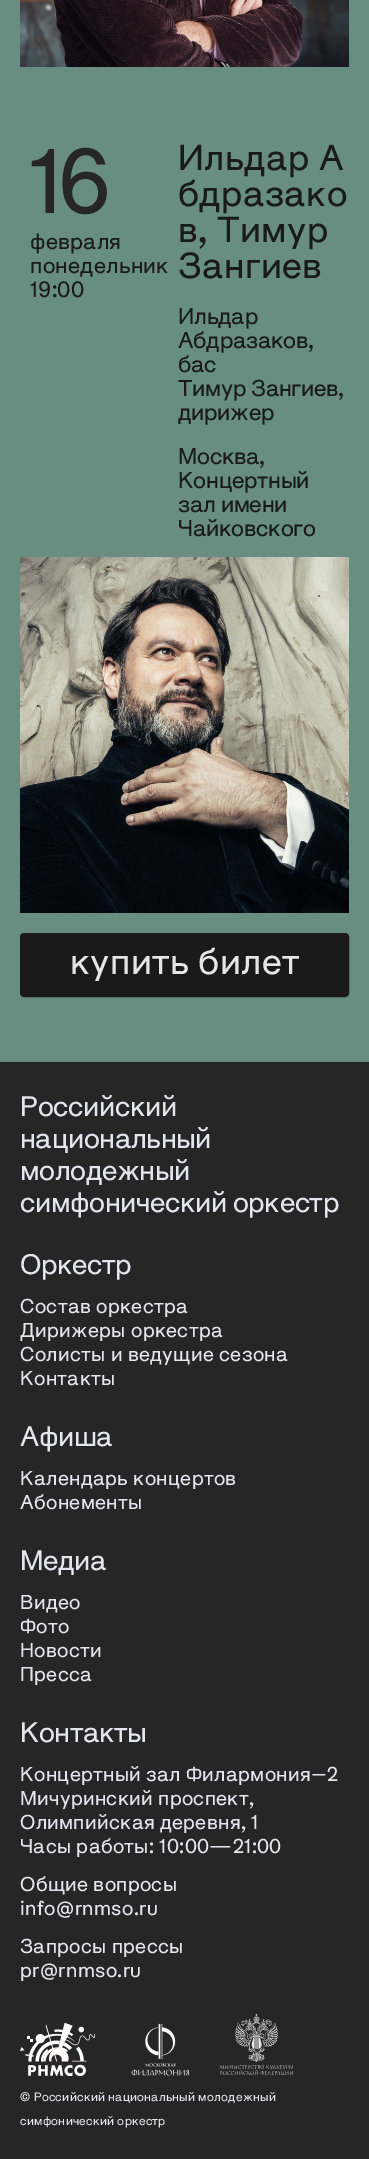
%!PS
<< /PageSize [369 2159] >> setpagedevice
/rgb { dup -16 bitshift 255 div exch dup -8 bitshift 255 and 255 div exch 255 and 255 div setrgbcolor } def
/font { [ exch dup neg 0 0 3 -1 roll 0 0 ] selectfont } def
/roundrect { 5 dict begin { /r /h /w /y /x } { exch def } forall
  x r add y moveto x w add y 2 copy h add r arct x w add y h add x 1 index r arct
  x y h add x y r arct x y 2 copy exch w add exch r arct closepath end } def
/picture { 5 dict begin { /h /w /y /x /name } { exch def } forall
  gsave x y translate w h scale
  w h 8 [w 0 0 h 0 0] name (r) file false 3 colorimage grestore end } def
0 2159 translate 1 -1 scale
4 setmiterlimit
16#678E80 rgb
0 0 369 2159 rectfill
(pic1.raw) 20 0 329 67 picture
/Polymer-SemiBold 91 font
16#262626 rgb
30 213 moveto -5 0 (16) ashow
/Polymer-SemiBold 22 font
16#1A1A1A rgb
30 249 moveto 0.25 0 (февраля) ashow
30 273 moveto 0.25 0 (понедельник) ashow
30 297 moveto 0.25 0 (19:00) ashow
/Polymer-SemiBold 36 font
178 170 moveto 0.4 0 (Ильдар А) ashow
178 206 moveto 0.4 0 (бдразако) ashow
178 242 moveto 0.4 0 (в, Тимур) ashow
178 278 moveto 0.4 0 (Зангиев) ashow
/Polymer-SemiBold 22.75 font
178 324 moveto -0.3 0 (Ильдар) ashow
178 348 moveto -0.3 0 (Абдразаков,) ashow
178 372 moveto -0.3 0 (бас) ashow
178 396 moveto -0.3 0 (Тимур Зангиев,) ashow
178 420 moveto -0.3 0 (дирижер) ashow
178 464 moveto -0.3 0 (Москва,) ashow
178 488 moveto -0.3 0 (Концертный) ashow
178 512 moveto -0.3 0 (зал имени) ashow
178 536 moveto -0.3 0 (Чайковского) ashow
(pic2.raw) 20 557 329 356 picture
21 934 327 62 3 roundrect gsave fill grestore
2 setlinewidth
stroke
/Polymer-SemiBold 36 font
16#E5E5E5 rgb
70 974 moveto 0.4 0 (купить билет) ashow
16#262626 rgb
0 1062 369 1097 rectfill
/Polymer-SemiBold 28 font
16#E5E5EE rgb
20 1116 moveto -0.45 0 (Российский) ashow
20 1148 moveto -0.45 0 (национальный) ashow
20 1180 moveto -0.45 0 (молодежный) ashow
20 1212 moveto -0.45 0 (симфонический оркестр) ashow
20 1274 moveto -0.45 0 (Оркестр) ashow
/Polymer-SemiBold 20 font
20 1313 moveto 0.3 0 (Состав оркестра) ashow
20 1337 moveto 0.3 0 (Дирижеры оркестра) ashow
20 1361 moveto 0.3 0 (Солисты и ведущие сезона) ashow
20 1385 moveto 0.3 0 (Контакты) ashow
/Polymer-SemiBold 28 font
20 1446 moveto -0.45 0 (Афиша) ashow
/Polymer-SemiBold 20 font
20 1485 moveto 0.3 0 (Календарь концертов) ashow
20 1509 moveto 0.3 0 (Абонементы) ashow
/Polymer-SemiBold 28 font
20 1570 moveto -0.45 0 (Медиа) ashow
/Polymer-SemiBold 20 font
20 1609 moveto 0.3 0 (Видео) ashow
20 1633 moveto 0.3 0 (Фото) ashow
20 1657 moveto 0.3 0 (Новости) ashow
20 1681 moveto 0.3 0 (Пресса) ashow
/Polymer-SemiBold 28 font
20 1742 moveto -0.45 0 (Контакты) ashow
/Polymer-SemiBold 20 font
20 1781 moveto 0.3 0 (Концертный зал Филармония–2) ashow
20 1805 moveto 0.3 0 (Мичуринский проспект,) ashow
20 1829 moveto 0.3 0 (Олимпийская деревня, 1) ashow
20 1853 moveto 0.3 0 (Часы работы: 10:00—21:00) ashow
20 1891 moveto 0.3 0 (Общие вопросы) ashow
20 1915 moveto 0.3 0 (info@rnmso.ru) ashow
20 1953 moveto 0.3 0 (Запросы прессы) ashow
20 1977 moveto 0.3 0 (pr@rnmso.ru) ashow
(pic3.raw) 20 2022 76 54 picture
(pic4.raw) 131 2023 58 53 picture
(pic5.raw) 220 2014 73 61 picture
/Polymer-SemiBold 12 font
20 2101 moveto 0.25 0 (© Российский национальный молодежный) ashow
20 2125 moveto 0.25 0 (симфонический оркестр) ashow
showpage
